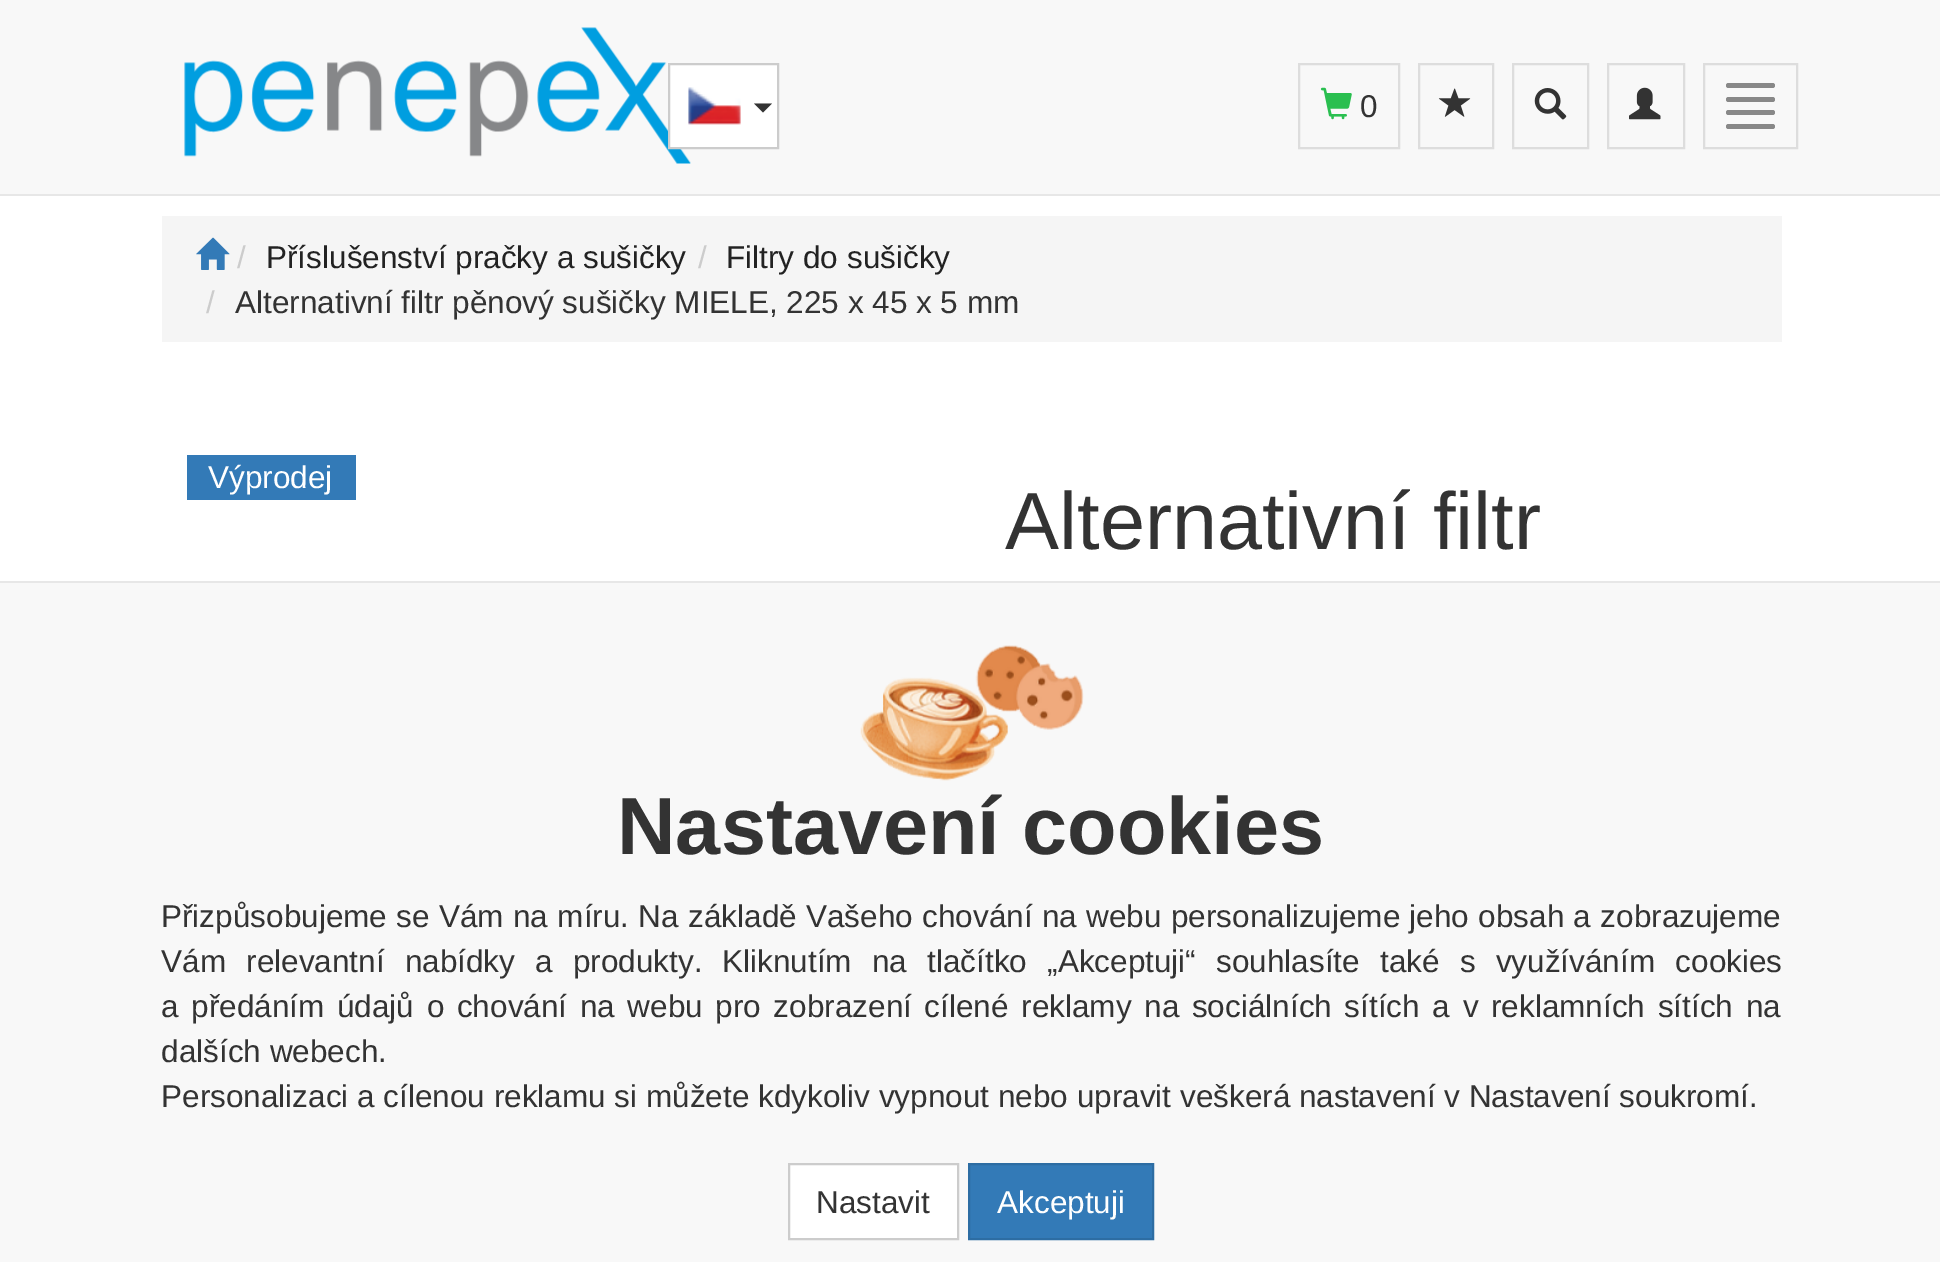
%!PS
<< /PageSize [1940 1262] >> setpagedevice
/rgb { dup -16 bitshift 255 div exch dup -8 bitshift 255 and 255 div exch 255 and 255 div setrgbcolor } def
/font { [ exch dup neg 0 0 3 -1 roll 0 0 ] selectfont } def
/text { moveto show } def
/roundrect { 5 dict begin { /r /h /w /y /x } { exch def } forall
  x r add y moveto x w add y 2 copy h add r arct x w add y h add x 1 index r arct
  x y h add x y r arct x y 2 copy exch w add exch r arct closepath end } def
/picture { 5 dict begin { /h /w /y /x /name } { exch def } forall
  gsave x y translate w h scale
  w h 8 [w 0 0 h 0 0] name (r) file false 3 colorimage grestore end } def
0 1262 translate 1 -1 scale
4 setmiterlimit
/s1 { /LiberationSans-Regular 31.5 font 16#333333 rgb } def
/s2 { /LiberationSans-Regular 31.5 font 16#CCCCCC rgb } def
/s3 { /LiberationSans-Regular 31.5 font 16#222222 rgb } def
/s4 { /LiberationSans-Regular 31.5 font 16#FFFFFF rgb } def
/s5 { /LiberationSans-Regular 81 font 16#333333 rgb } def
/s6 { /LiberationSans-Bold 81 font 16#333333 rgb } def
16#FFFFFF rgb
0 0 1940 1262 rectfill
16#F8F8F8 rgb
0 0 1940 194 rectfill
16#E7E7E7 rgb
0 194 1940 2 rectfill
(pic1.raw) 184 27 507 137 picture
16#FFFFFF rgb
669 64 moveto 778 64 lineto 778 148 lineto 669 148 lineto closepath gsave fill grestore
16#CCCCCC rgb
2 setlinewidth
stroke
(pic2.raw) 688 87 53 38 picture
16#333333 rgb
754 103.5 moveto 772 103.5 lineto 763 112.5 lineto closepath fill
16#DDDDDD rgb
1299 64 100 84 rectstroke
(pic3.raw) 1320 87 32 33 picture
s1
(0) 1360 117 text
16#DDDDDD rgb
1419 64 74 84 rectstroke
(pic4.raw) 1438 88 33 29 picture
1513 64 75 84 rectstroke
(pic5.raw) 1534 88 33 32 picture
1608 64 76 84 rectstroke
(pic6.raw) 1629 87 32 33 picture
1704 64 93 84 rectstroke
16#888888 rgb
1726 83 49 5 2.5 roundrect fill
1726 97 49 5 2.5 roundrect fill
1726 110 49 5 2.5 roundrect fill
1726 124 49 5 2.5 roundrect fill
16#F5F5F5 rgb
162 216 1620 126 rectfill
(pic7.raw) 196 237 34 33 picture
s2
(/) 237 268 text
s3
(Příslušenství pračky a sušičky) 266 268 text
s2
(/) 698 268 text
s3
(Filtry do sušičky) 726 268 text
s2
(/) 206 313 text
s1
(Alternativní filtr pěnový sušičky MIELE, 225 x 45 x 5 mm) 235 313 text
16#337AB7 rgb
187 455 169 45 rectfill
s4
(Výprodej) 208 488 text
s5
(Alternativní filtr) 1005 549 text
16#F8F8F8 rgb
0 583 1940 679 rectfill
16#E7E7E7 rgb
0 581 1940 2 rectfill
(pic8.raw) 860 645 224 136 picture
s6
(Nastavení cookies) 617 854 text
/LiberationSans-Regular 31.5 font
161 927 moveto 0.6 0 32 (Přizpůsobujeme se Vám na míru. Na základě Vašeho chování na webu personalizujeme jeho obsah a zobrazujeme) widthshow
161 972 moveto 11.5 0 32 (Vám relevantní nabídky a produkty.) widthshow
722 972 moveto 11.5 0 32 (Kliknutím na tlačítko „Akceptuji“ souhlasíte také s využíváním cookies) widthshow
161 1017 moveto 3.9 0 32 (a předáním údajů o chování na webu pro zobrazení cílené reklamy na sociálních sítích a v reklamních sítích na) widthshow
(dalších webech.) 161 1062 text
(Personalizaci a cílenou reklamu si můžete kdykoliv vypnout nebo upravit veškerá nastavení v Nastavení soukromí.) 161 1107 text
16#FFFFFF rgb
789 1164 moveto 958 1164 lineto 958 1239 lineto 789 1239 lineto closepath gsave fill grestore
16#CCCCCC rgb
stroke
s1
(Nastavit) 816 1213 text
16#337AB7 rgb
969 1164 moveto 1153 1164 lineto 1153 1239 lineto 969 1239 lineto closepath gsave fill grestore
16#2D6DA3 rgb
stroke
s4
(Akceptuji) 997 1213 text
showpage
